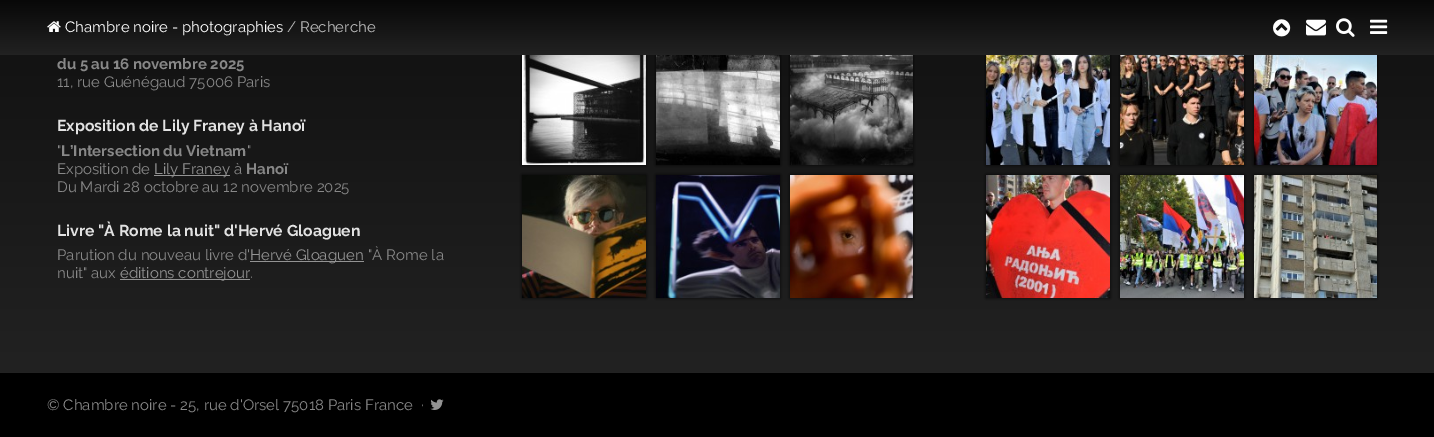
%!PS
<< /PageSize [1434 437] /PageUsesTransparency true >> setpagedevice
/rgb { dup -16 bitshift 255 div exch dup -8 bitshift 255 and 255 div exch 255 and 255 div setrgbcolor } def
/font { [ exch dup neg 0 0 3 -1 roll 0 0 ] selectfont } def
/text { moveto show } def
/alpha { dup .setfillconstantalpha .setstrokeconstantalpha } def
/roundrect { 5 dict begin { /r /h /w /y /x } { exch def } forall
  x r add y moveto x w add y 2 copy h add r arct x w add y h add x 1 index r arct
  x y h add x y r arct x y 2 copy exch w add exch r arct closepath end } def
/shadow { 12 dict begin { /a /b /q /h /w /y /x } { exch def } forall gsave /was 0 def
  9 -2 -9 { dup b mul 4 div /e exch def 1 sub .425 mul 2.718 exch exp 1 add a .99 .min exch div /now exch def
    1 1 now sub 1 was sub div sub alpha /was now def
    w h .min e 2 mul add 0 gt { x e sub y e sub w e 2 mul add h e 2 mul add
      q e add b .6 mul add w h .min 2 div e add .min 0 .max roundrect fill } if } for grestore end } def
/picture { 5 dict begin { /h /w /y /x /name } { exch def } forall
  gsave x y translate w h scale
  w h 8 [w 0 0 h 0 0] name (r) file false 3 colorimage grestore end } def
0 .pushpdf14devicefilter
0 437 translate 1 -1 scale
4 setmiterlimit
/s1 { /Raleway-Regular 15 font 16#FFFFFF rgb } def
/s2 { /Raleway-Regular 15 font 16#BBBBBB rgb } def
/s3 { /Raleway-Bold 15 font 16#888888 rgb } def
/s4 { /Raleway-Regular 15 font 16#888888 rgb } def
/s5 { /Raleway-Bold 15.75 font 16#E2E2E2 rgb } def
/s6 { /Raleway-Regular 15 font 16#939393 rgb } def
16#FFFFFF rgb
0 0 1434 437 rectfill
gsave 0 55 moveto 1434 55 lineto 1434 373 lineto 0 373 lineto closepath clip newpath
<< /ShadingType 2 /ColorSpace /DeviceRGB /Coords [717 -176 717 373] /Extend [true true] /Function << /FunctionType 2 /Domain [0 1] /C0 [0.031 0.031 0.031] /C1 [0.133 0.133 0.133] /N 1 >> >> shfill grestore
16#000000 rgb
522 41 124 124 0 1.5 0.75 shadow
656 41 124 124 0 1.5 0.75 shadow
790 41 123 124 0 1.5 0.75 shadow
986 41 124 124 0 1.5 0.75 shadow
1120 41 124 124 0 1.5 0.75 shadow
1254 41 123 124 0 1.5 0.75 shadow
gsave 0 0 moveto 1434 0 lineto 1434 55 lineto 0 55 lineto closepath clip newpath
<< /ShadingType 2 /ColorSpace /DeviceRGB /Coords [717 0 717 55] /Extend [true true] /Function << /FunctionType 2 /Domain [0 1] /C0 [0.031 0.031 0.031] /C1 [0.133 0.133 0.133] /N 1 >> >> shfill grestore
(pic1.raw) 47 21 14 11 picture
s1
(Chambre noire - photographies) 65 32 text
s2
(/ Recherche) 287 32 text
(pic2.raw) 1273 19 18 18 picture
(pic3.raw) 1306 19 20 17 picture
(pic4.raw) 1336 18 19 19 picture
(pic5.raw) 1370 19 18 15 picture
s3
(du 5 au 16 novembre 2025) 57 69 text
s4
(11, rue Guénégaud 75006 Paris) 57 87 text
s5
(Exposition de Lily Franey à Hanoï) 57 131 text
s4
(") 57 156 text
s3
(L’Intersection du Vietnam) 61 156 text
s4
(") 247 156 text
(Exposition de) 57 174 text
16#939393 rgb
154 175 76 1 rectfill
(Lily Franey) 154 174 text
s4
(à) 234 174 text
s3
(Hanoï) 246 174 text
s4
(Du Mardi 28 octobre au 12 novembre 2025) 57 192 text
s5
(Livre "À Rome la nuit" d'Hervé Gloaguen) 57 236 text
s4
(Parution du nouveau livre d') 57 260 text
16#939393 rgb
250 261 114 1 rectfill
(Hervé Gloaguen) 250 260 text
s4
("À Rome la) 368 260 text
(nuit" aux) 57 278 text
16#939393 rgb
120 279 130 1 rectfill
(éditions contrejour) 120 278 text
s4
(.) 250 278 text
(pic6.raw) 522 55 124 110 picture
(pic7.raw) 656 55 124 110 picture
(pic8.raw) 790 55 123 110 picture
16#000000 rgb
522 175 124 123 0 1.5 0.75 shadow
(pic9.raw) 522 175 124 123 picture
656 175 124 123 0 1.5 0.75 shadow
(pic10.raw) 656 175 124 123 picture
790 175 123 123 0 1.5 0.75 shadow
(pic11.raw) 790 175 123 123 picture
(pic12.raw) 986 55 124 110 picture
(pic13.raw) 1120 55 124 110 picture
(pic14.raw) 1254 55 123 110 picture
986 175 124 123 0 1.5 0.75 shadow
(pic15.raw) 986 175 124 123 picture
1120 175 124 123 0 1.5 0.75 shadow
(pic16.raw) 1120 175 124 123 picture
1254 175 123 123 0 1.5 0.75 shadow
(pic17.raw) 1254 175 123 123 picture
0 373 1434 64 rectfill
s4
(© Chambre noire - 25, rue d'Orsel 75018 Paris France) 47 410 text
(·) 421 410 text
(pic18.raw) 430 399 14 11 picture
.poppdf14devicefilter showpage
